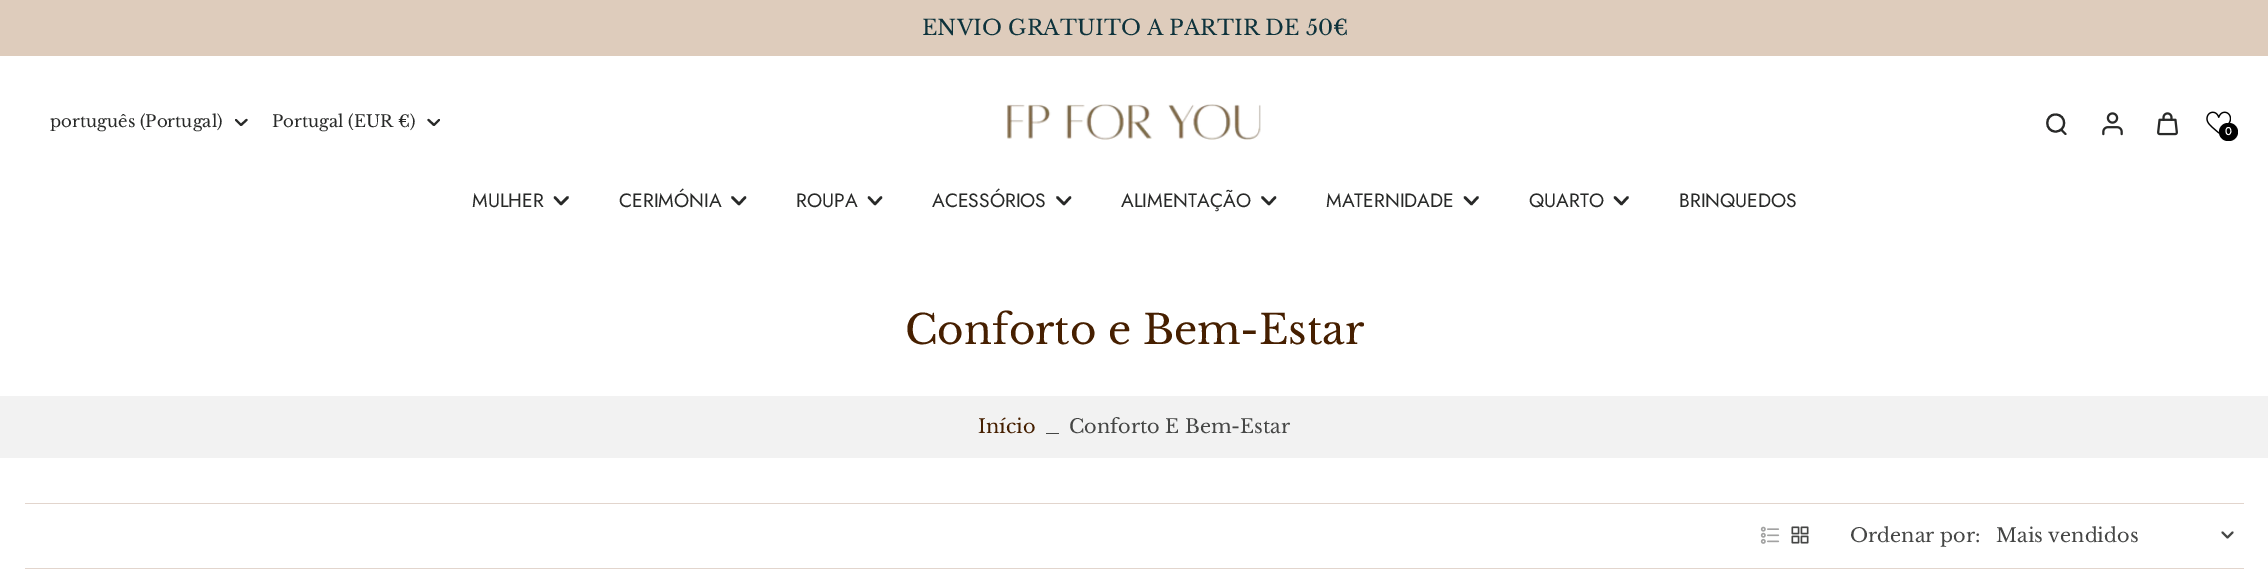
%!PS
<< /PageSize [2268 576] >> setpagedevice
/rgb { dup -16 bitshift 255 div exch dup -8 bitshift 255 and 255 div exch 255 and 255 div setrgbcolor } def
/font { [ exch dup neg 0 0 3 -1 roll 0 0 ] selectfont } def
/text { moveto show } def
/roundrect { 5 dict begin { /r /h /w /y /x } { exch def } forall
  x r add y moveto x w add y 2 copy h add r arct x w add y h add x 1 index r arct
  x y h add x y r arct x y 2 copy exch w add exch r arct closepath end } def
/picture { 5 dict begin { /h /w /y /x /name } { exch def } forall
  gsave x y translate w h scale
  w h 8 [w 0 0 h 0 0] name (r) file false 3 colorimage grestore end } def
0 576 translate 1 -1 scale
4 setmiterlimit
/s1 { /LibreBaskerville-Regular 21.2 font 16#0E333C rgb } def
/s2 { /LibreBaskerville-Regular 16.5 font 16#282928 rgb } def
/s3 { /Jost-Bold 11 font 16#FFFFFF rgb } def
/s4 { /Jost-Regular 19.25 font 16#282928 rgb } def
/s5 { /LibreBaskerville-Regular 40.5 font 16#461F00 rgb } def
/s6 { /LibreBaskerville-Regular 19.25 font 16#461F00 rgb } def
/s7 { /LibreBaskerville-Regular 19.25 font 16#454645 rgb } def
16#FFFFFF rgb
0 0 2268 576 rectfill
16#DECCBC rgb
0 0 2268 56 rectfill
s1
(ENVIO GRATUITO A PARTIR DE 50€) 922 35 text
s2
(português \(Portugal\)) 50 127 text
2.1 setlinewidth
1 setlinecap
1 setlinejoin
236 120 moveto 241 125 lineto 246.5 120 lineto stroke
(Portugal \(EUR €\)) 272 127 text
428.5 120 moveto 434 125 lineto 439 120 lineto stroke
(pic1.raw) 1006 104 255 36 picture
0 setlinecap
0 setlinejoin
2055.5 131.5 moveto 2067 131.5 2067 114.5 2055.5 114.5 curveto 2044.5 114.5 2044.5 131.5 2055.5 131.5 curveto closepath stroke
1 setlinecap
2061.5 130 moveto 2065.5 134 lineto stroke
(pic2.raw) 2102 112 21 24 picture
(pic3.raw) 2157 112 21 24 picture
(pic4.raw) 2206 111 25 23 picture
16#000000 rgb
2219 123 19 18 9 roundrect fill
s3
(0) 2225 135 text
s4
(MULHER) 472 207 text
2.5 setlinewidth
1 setlinejoin
555 197.5 moveto 561 204 lineto 567.5 197.5 lineto stroke
(CERIMÓNIA) 619 207 text
732.5 197.5 moveto 739 204 lineto 745 197.5 lineto stroke
(ROUPA) 796 207 text
869 197.5 moveto 875 204 lineto 881 197.5 lineto stroke
(ACESSÓRIOS) 932 207 text
1057.5 197.5 moveto 1064 204 lineto 1070 197.5 lineto stroke
(ALIMENTAÇÃO) 1121 207 text
1262.5 197.5 moveto 1269 204 lineto 1275 197.5 lineto stroke
(MATERNIDADE) 1326 207 text
1465 197.5 moveto 1471.5 204 lineto 1477.5 197.5 lineto stroke
(QUARTO) 1529 207 text
1615 197.5 moveto 1621.5 204 lineto 1627.5 197.5 lineto stroke
(BRINQUEDOS) 1679 207 text
s5
(Conforto e Bem-Estar) 905 344 text
16#F2F2F2 rgb
0 396 2268 62 rectfill
s6
(Início) 978 433 text
16#454645 rgb
1046 433 13 1 rectfill
(Conforto E Bem-Estar) 1069 433 text
16#E2D5CD rgb
25 503 2219 1 rectfill
25 568 2219 1 rectfill
(pic5.raw) 1760 526 20 18 picture
(pic6.raw) 1791 526 18 18 picture
s7
(Ordenar por:) 1850 542 text
(Mais vendidos) 1996 542 text
2.1 setlinewidth
2222.5 532.5 moveto 2227.5 537.5 lineto 2232.5 532.5 lineto stroke
showpage
